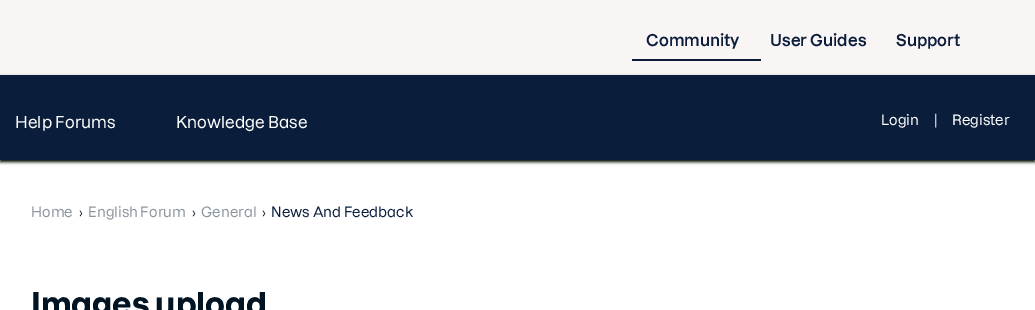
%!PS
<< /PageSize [1035 310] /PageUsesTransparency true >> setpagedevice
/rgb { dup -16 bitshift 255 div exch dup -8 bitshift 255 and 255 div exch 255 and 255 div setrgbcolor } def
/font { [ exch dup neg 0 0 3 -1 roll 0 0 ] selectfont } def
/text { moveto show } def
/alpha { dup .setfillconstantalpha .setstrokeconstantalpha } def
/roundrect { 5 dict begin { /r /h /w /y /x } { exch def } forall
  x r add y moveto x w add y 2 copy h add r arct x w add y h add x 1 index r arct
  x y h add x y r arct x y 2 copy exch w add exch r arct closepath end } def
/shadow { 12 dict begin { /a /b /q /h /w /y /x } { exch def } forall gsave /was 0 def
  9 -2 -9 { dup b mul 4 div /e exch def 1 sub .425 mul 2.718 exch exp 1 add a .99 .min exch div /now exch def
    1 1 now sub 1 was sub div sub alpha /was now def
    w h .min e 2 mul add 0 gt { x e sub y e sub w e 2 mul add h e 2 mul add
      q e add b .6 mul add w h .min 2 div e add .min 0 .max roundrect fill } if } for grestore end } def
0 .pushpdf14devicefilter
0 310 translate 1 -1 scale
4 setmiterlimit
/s1 { /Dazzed-SemiBold 16 font 16#0A1E3C rgb } def
/s2 { /Dazzed-Medium 16 font 16#FFFFFF rgb } def
/s3 { /Dazzed-Medium 14 font 16#FFFFFF rgb } def
/s4 { /Dazzed-Medium 14 font 16#8C96A0 rgb } def
/s5 { /Dazzed-Medium 12 font 16#001423 rgb } def
/s6 { /Dazzed-Medium 14 font 16#0A1E3C rgb } def
/s7 { /Dazzed-Bold 32 font 16#001423 rgb } def
16#FFFFFF rgb
0 0 1035 310 rectfill
16#FAF5F5 rgb
0 0 1035 75 rectfill
s1
(Community) 646 46 text
632 59 129 2 rectfill
(User Guides) 770 46 text
(Support) 896 46 text
16#000D00 rgb
0 77 1035 85 0 1.5 1 shadow
16#0A1E3C rgb
0 75 1035 85 rectfill
s2
(Help Forums) 15 128 text
(Knowledge Base) 176 128 text
s3
(Login) 881 125 text
(|) 934 125 text
(Register) 952 125 text
s4
(Home) 31 217 text
s5
(›) 79 217 text
s4
(English Forum) 88 217 text
s5
(›) 192 217 text
s4
(General) 201 217 text
s5
(›) 262 217 text
s6
(News And Feedback) 271 217 text
s7
(Images upload) 31 316 text
.poppdf14devicefilter showpage
